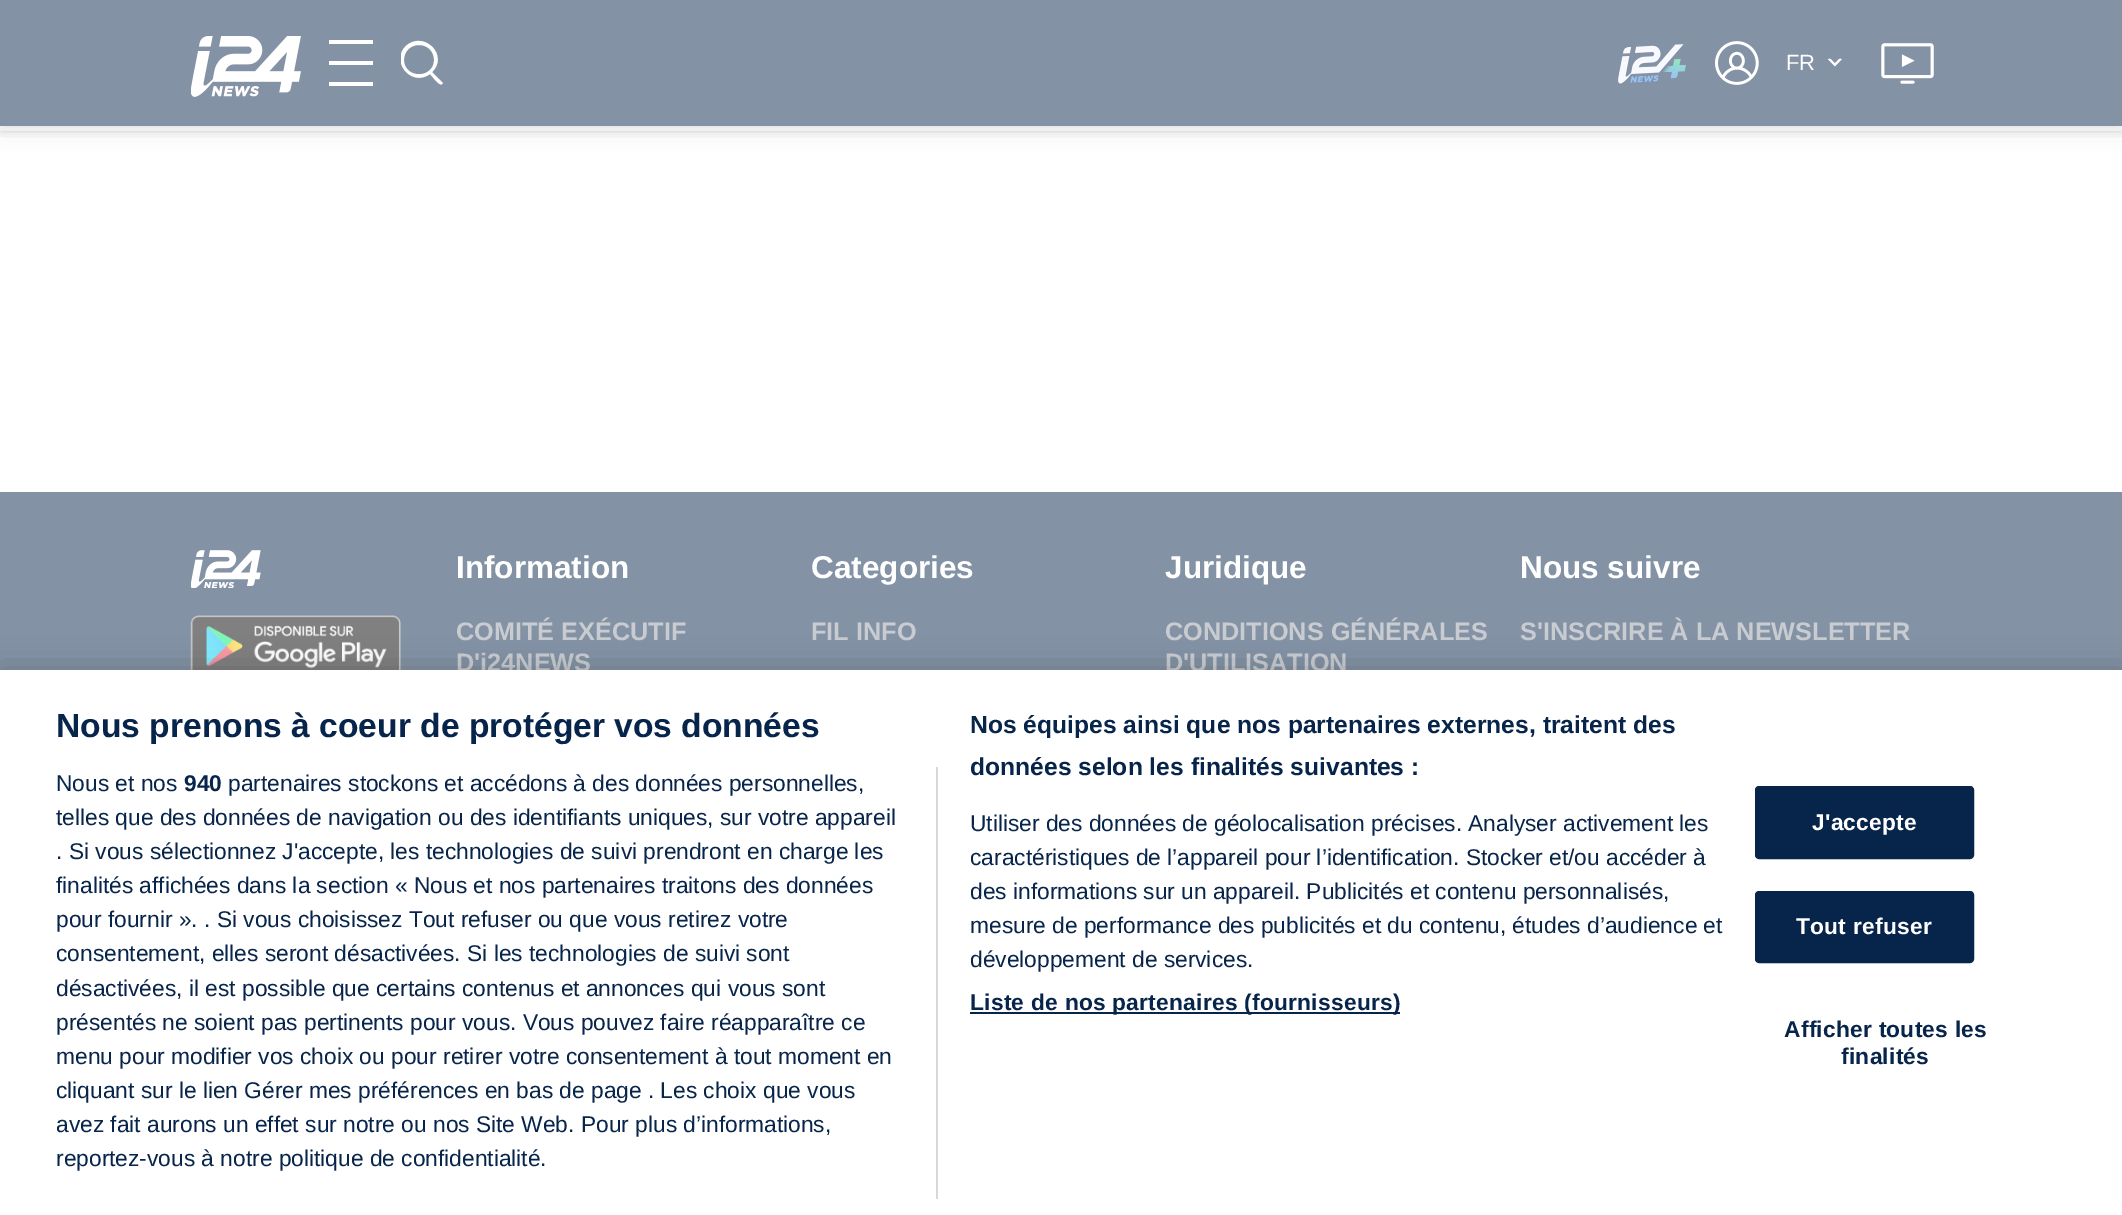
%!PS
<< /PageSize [2122 1215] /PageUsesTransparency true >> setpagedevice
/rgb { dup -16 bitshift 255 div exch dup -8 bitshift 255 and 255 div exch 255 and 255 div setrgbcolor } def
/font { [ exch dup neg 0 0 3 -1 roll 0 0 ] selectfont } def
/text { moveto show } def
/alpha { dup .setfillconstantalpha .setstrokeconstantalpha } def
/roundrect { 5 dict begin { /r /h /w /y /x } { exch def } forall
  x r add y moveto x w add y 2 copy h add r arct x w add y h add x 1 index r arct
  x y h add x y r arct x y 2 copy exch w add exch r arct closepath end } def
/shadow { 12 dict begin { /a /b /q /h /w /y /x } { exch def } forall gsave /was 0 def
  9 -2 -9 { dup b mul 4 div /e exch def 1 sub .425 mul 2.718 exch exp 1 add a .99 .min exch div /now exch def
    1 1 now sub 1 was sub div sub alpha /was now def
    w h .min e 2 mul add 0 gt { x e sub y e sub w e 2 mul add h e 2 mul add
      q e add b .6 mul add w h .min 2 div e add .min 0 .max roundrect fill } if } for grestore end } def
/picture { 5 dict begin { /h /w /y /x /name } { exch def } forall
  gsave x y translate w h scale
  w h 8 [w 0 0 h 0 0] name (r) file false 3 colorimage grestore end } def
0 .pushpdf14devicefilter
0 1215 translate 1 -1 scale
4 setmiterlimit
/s1 { /LiberationSans-Regular 22 font 16#FFFFFF rgb } def
/s2 { /LiberationSans-Bold 31.5 font 16#FFFFFF rgb } def
/s3 { /LiberationSans-Bold 25.25 font 16#C9CCD0 rgb } def
/s4 { /LiberationSans-Bold 33.6 font 16#07244B rgb } def
/s5 { /LiberationSans-Bold 24.65 font 16#07244B rgb } def
/s6 { /LiberationSans-Regular 22.75 font 16#07244B rgb } def
/s7 { /LiberationSans-Bold 22.75 font 16#07244B rgb } def
16#FFFFFF rgb
0 0 2122 1215 rectfill
16#808080 rgb
0 4 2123 126 0 10.5 0.25 shadow
gsave
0 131 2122 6 rectclip
0 126 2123 5 0 4.5 0.25 shadow
grestore
16#8392A5 rgb
0 0 2122 126 rectfill
(pic1.raw) 191 36 110 61 picture
16#FFFFFF rgb
329 40 44 4 rectfill
329 61 44 4 rectfill
329 82 44 4 rectfill
gsave
401 40 42 46 rectclip
442 82 moveto 432 72 lineto 449 56 425 31 407 45 curveto 389 60 411 88 430 74 curveto 432 76 440 87 442 84 curveto 443 84 443 83 442 82 curveto closepath 404 60 moveto 404 40 434 40 434 60 curveto 434 79 404 79 404 60 curveto closepath fill
grestore
(pic2.raw) 1618 44 68 40 picture
(pic3.raw) 1715 41 44 44 picture
s1
(FR) 1786 70 text
(pic4.raw) 1828 58 14 9 picture
(pic5.raw) 1881 43 53 41 picture
16#8392A5 rgb
0 492 2122 178 rectfill
(pic6.raw) 191 550 70 38 picture
(pic7.raw) 190 615 211 55 picture
s2
(Information) 456 578 text
s3
(COMITÉ EXÉCUTIF) 456 640 text
(D'i24NEWS) 456 671 text
s2
(Categories) 811 578 text
s3
(FIL INFO) 811 640 text
s2
(Juridique) 1165 578 text
s3
(CONDITIONS GÉNÉRALES) 1165 640 text
(D'UTILISATION) 1165 671 text
s2
(Nous suivre) 1520 578 text
s3
(S'INSCRIRE À LA NEWSLETTER) 1520 640 text
16#000000 rgb
0 670 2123 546 0 16 0.2 shadow
16#FFFFFF rgb
0 670 2122 545 rectfill
s4
(Nous prenons à coeur de protéger vos données) 56 737 text
s5
(Nos équipes ainsi que nos partenaires externes, traitent des) 970 733 text
(données selon les finalités suivantes :) 970 775 text
s6
(Utiliser des données de géolocalisation précises. Analyser activement les) 970 831 text
(caractéristiques de l’appareil pour l’identification. Stocker et/ou accéder à) 970 865 text
(des informations sur un appareil. Publicités et contenu personnalisés,) 970 899 text
(mesure de performance des publicités et du contenu, études d’audience et) 970 933 text
(développement de services.) 970 967 text
970 1012 430 2 rectfill
/LiberationSans-Bold 22.75 font
970 1010 moveto 0.25 0 (Liste de nos partenaires \(fournisseurs\)) ashow
16#D8D8D8 rgb
936 767 2 432 rectfill
s6
(Nous et nos) 56 791 text
s7
(940) 184 791 text
s6
(partenaires stockons et accédons à des données personnelles,) 228 791 text
(telles que des données de navigation ou des identifiants uniques, sur votre appareil) 56 825 text
(. Si vous sélectionnez J'accepte, les technologies de suivi prendront en charge les) 56 859 text
(finalités affichées dans la section « Nous et nos partenaires traitons des données) 56 893 text
(pour fournir ». . Si vous choisissez Tout refuser ou que vous retirez votre) 56 927 text
(consentement, elles seront désactivées. Si les technologies de suivi sont) 56 961 text
(désactivées, il est possible que certains contenus et annonces qui vous sont) 56 996 text
(présentés ne soient pas pertinents pour vous. Vous pouvez faire réapparaître ce) 56 1030 text
(menu pour modifier vos choix ou pour retirer votre consentement à tout moment en) 56 1064 text
(cliquant sur le lien Gérer mes préférences en bas de page . Les choix que vous) 56 1098 text
(avez fait aurons un effet sur notre ou nos Site Web. Pour plus d’informations,) 56 1132 text
(reportez-vous à notre politique de confidentialité.) 56 1166 text
1756 787 217 71 3 roundrect gsave fill grestore
2 setlinewidth
stroke
/LiberationSans-Bold 22.75 font
16#FFFFFF rgb
1812 830 moveto 0.25 0 (J'accepte) ashow
16#07244B rgb
1756 892 217 70 3 roundrect gsave fill grestore
stroke
16#FFFFFF rgb
1796 934 moveto 0.25 0 (Tout refuser) ashow
16#07244B rgb
1784 1037 moveto 0.25 0 (Afficher toutes les) ashow
1841 1064 moveto 0.25 0 (finalités) ashow
.poppdf14devicefilter showpage
